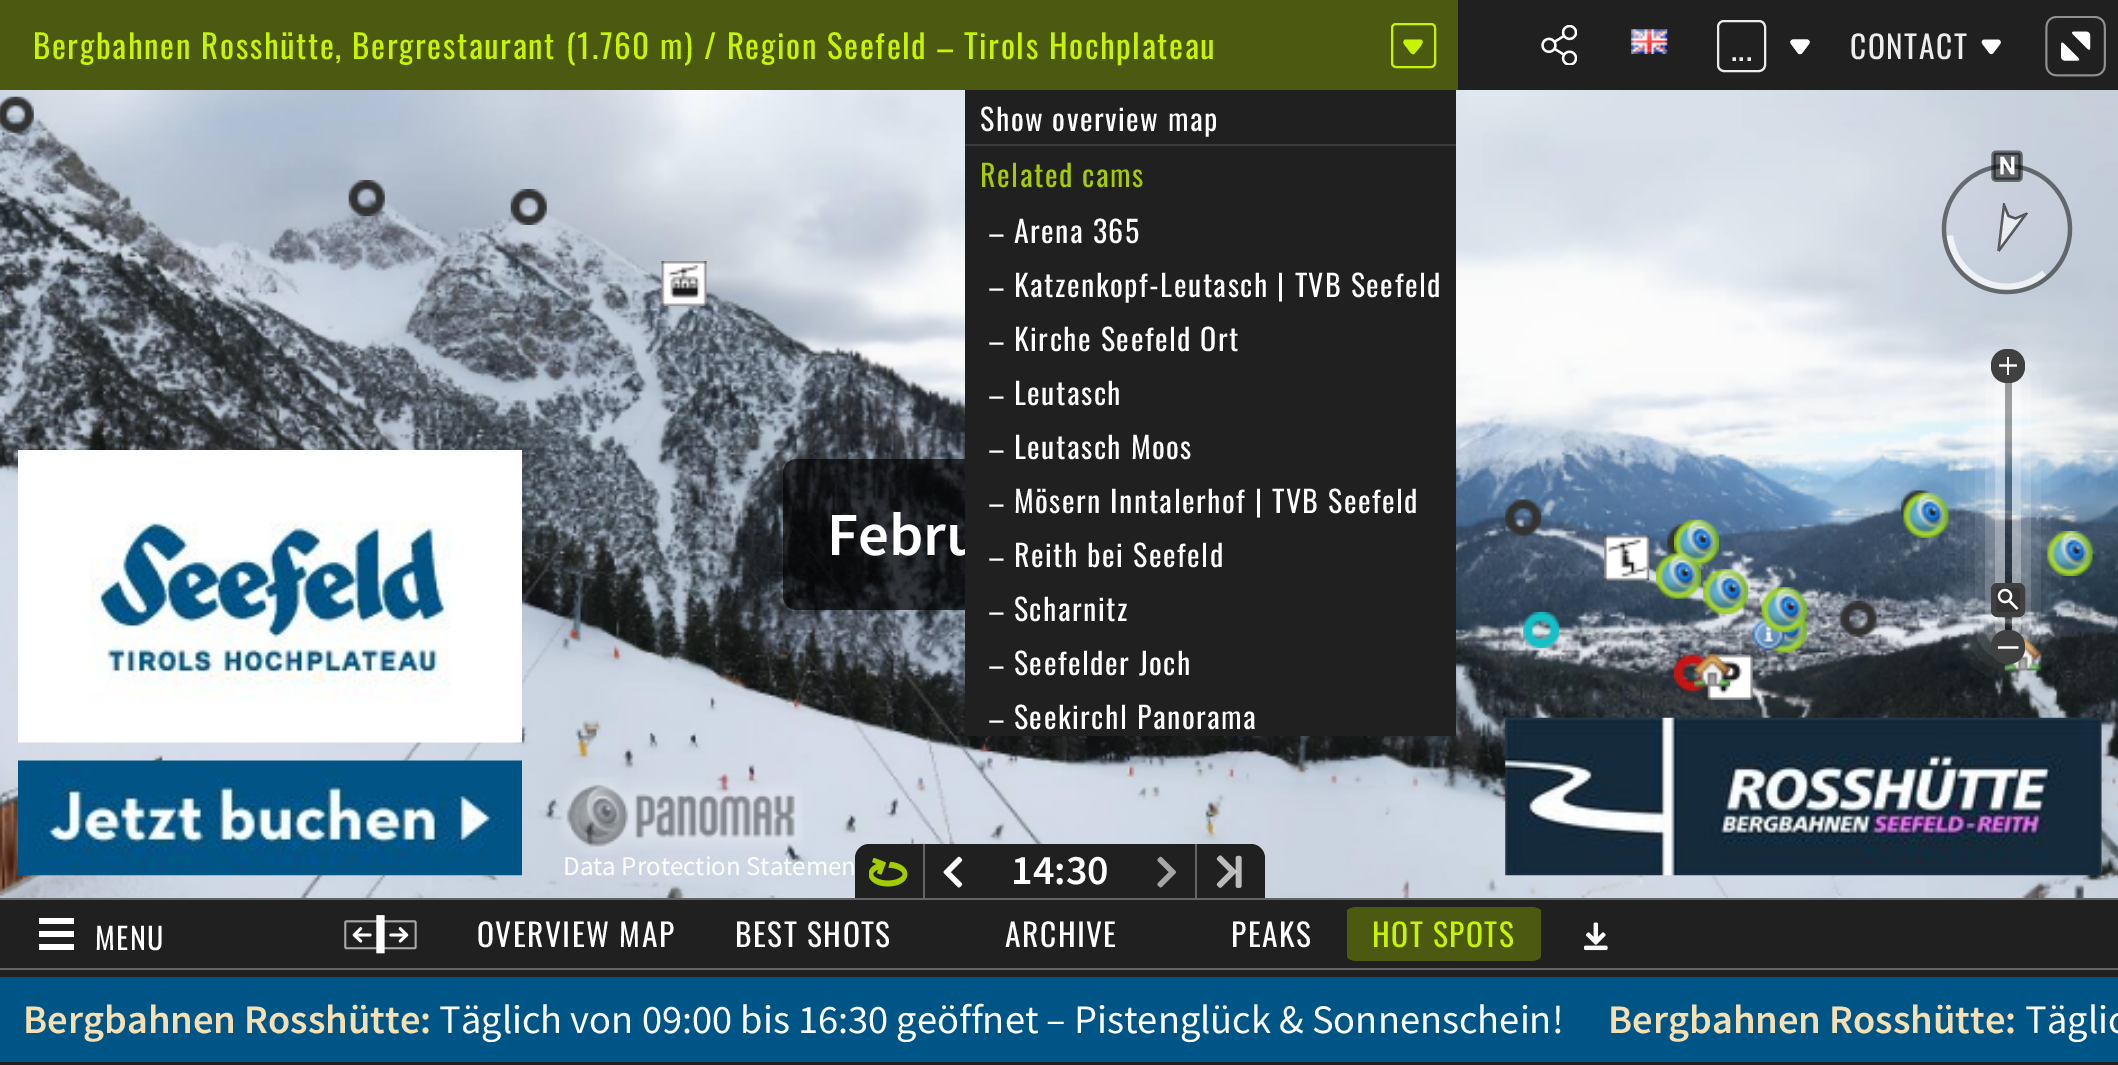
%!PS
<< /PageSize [2118 1065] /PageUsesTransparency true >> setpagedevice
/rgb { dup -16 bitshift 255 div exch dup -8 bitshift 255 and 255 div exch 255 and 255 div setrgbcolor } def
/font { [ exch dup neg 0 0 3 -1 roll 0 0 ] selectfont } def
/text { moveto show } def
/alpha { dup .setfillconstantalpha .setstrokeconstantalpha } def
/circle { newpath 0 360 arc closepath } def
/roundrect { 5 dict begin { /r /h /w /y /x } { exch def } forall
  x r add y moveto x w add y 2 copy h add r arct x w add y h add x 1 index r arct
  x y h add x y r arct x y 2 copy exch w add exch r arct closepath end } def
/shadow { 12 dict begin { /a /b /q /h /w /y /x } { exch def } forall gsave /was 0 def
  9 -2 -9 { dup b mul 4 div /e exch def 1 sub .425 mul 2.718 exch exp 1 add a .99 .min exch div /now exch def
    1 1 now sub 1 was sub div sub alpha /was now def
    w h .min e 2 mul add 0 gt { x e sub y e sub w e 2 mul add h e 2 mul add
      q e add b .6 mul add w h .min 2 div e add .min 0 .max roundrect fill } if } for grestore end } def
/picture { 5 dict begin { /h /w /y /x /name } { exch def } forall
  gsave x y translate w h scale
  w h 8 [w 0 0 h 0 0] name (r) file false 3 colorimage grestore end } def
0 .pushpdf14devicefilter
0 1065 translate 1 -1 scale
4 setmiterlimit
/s1 { /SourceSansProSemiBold-SemiBold 61 font 16#FFFFFF rgb } def
/s2 { /SourceSansPro-Regular 27 font 16#FFFFFF rgb } def
/s3 { /SourceSansProSemiBold-SemiBold 42 font 16#FFFFFF rgb } def
/s4 { /SourceSansProSemiBold-SemiBold 40.5 font 16#F6DFB0 rgb } def
/s5 { /SourceSansPro-Regular 40.5 font 16#FFFFFF rgb } def
16#FFFFFF rgb
0 0 2118 1065 rectfill
16#202020 rgb
1458 0 660 90 rectfill
16#4B5A10 rgb
0 0 1458 90 rectfill
/Oswald-Regular 33 font
16#C5F500 rgb
33 59 moveto 1.65 0 (Bergbahnen Rosshütte, Bergrestaurant \(1.760 m\) / Region Seefeld – Tirols Hochplateau) ashow
1415 53 moveto 1420 47 lineto 1421 45.5 1425 40.5 1420.5 39.5 curveto 1405.5 39.5 lineto 1405 39.5 1404 40 1404 40.5 curveto 1402.5 42.5 1404 44 1405 45.5 curveto 1407.5 48.5 lineto 1408.5 50 1412.5 57 1415 53 curveto closepath eofill
2 setlinewidth
1392 24 43 43 4 roundrect stroke
(pic18.raw) 0 90 2118 808 picture
16#202020 rgb
965 90 491 54 rectfill
/Oswald-Regular 30 font
16#FFFFFF rgb
980 131 moveto 1.5 0 (Show overview map) ashow
0.7 alpha
16#000000 rgb
783 459 554 151 14 roundrect fill
1 alpha
s1
(Febru) 827 555 text
16#202020 rgb
965 146 491 590 rectfill
16#3B3B3B rgb
965 144 491 2 rectfill
/Oswald-Regular 30 font
16#A3CD00 rgb
980 187 moveto 1.5 0 (Related cams) ashow
16#FFFFFF rgb
989 243 moveto 1.5 0 (– Arena 365) ashow
989 297 moveto 1.5 0 (– Katzenkopf-Leutasch | TVB Seefeld) ashow
989 351 moveto 1.5 0 (– Kirche Seefeld Ort) ashow
989 405 moveto 1.5 0 (– Leutasch) ashow
989 459 moveto 1.5 0 (– Leutasch Moos) ashow
989 513 moveto 1.5 0 (– Mösern Inntalerhof | TVB Seefeld) ashow
989 567 moveto 1.5 0 (– Reith bei Seefeld) ashow
989 621 moveto 1.5 0 (– Scharnitz) ashow
989 675 moveto 1.5 0 (– Seefelder Joch) ashow
989 729 moveto 1.5 0 (– Seekirchl Panorama) ashow
(pic1.raw) 1541 25 36 40 picture
(pic2.raw) 1631 29 37 25 picture
(pic3.raw) 1790 39 20 16 picture
(pic4.raw) 1790 39 20 16 picture
16#EDEDED rgb
1718 21 47 50 6 roundrect stroke
/Oswald-Regular 31.5 font
1731 61 moveto 1.5 0 (...) ashow
1850 59 moveto 1.5 0 (CONTACT) ashow
(pic5.raw) 1981 39 20 16 picture
(pic6.raw) 2045 16 61 61 picture
gsave
2007 229.5 moveto 1946.5 236 lineto 1949 258.5 1963.5 277.5 1984.5 286 curveto 2005.5 294.5 2029.5 290.5 2046.5 275.5 curveto closepath clip newpath
0.7 alpha
16#FFFFFF rgb
9 setlinewidth
2007 229.5 58.5 circle stroke
grestore
(pic7.raw) 1941 150 132 145 picture
0.6 alpha
16#FFFFFF rgb
1998 251 moveto 2004 205 lineto 2008 216 lineto 2015 219 lineto 2026 214 lineto closepath eofill
gsave
2019.5 259 moveto 1977.5 242 lineto 1994.5 200 lineto 2036.5 217 lineto closepath clip newpath
16#000000 rgb
2.3 setlinewidth
1998.5 251 moveto 2004 205 lineto 2008.5 216 lineto 2015.5 218.5 lineto 2026 214 lineto closepath stroke
grestore
1 alpha
(pic23.raw) 1901 490 35 35 picture
(pic26.raw) 1903 492 46 46 picture
(pic29.raw) 2047 531 46 45 picture
(pic39.raw) 2004 637 37 35 picture
gsave
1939 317 moveto 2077 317 lineto 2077 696 lineto 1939 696 lineto closepath 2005 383 moveto 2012 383 lineto 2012 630 lineto 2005 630 lineto closepath eoclip newpath
2000 378 16 257 0 20 1 shadow
grestore
0.35 alpha
16#000000 rgb
2005 383 7 247 rectfill
1 alpha
16#404040 rgb
1991 349 34 34 16 roundrect fill
16#FFFFFF rgb
2.2 setlinewidth
1999 365.5 moveto 2017 365.5 lineto stroke
2007 357 2 18 rectfill
16#333333 rgb
1991 583 34 34 7 roundrect fill
16#FFFFFF rgb
2005 596 6 circle stroke
2009 600.5 moveto 2017.5 609 lineto stroke
16#404040 rgb
5 setlinewidth
1993.5 585.5 29 29 4.5 roundrect stroke
1991 630 34 34 16 roundrect fill
16#FFFFFF rgb
2.2 setlinewidth
1998 647.5 moveto 2018.5 647.5 lineto stroke
16#202020 rgb
0 900 2118 165 rectfill
16#646464 rgb
0 898 2118 2 rectfill
(pic8.raw) 18 450 504 293 picture
(pic9.raw) 18 760 504 116 picture
(pic10.raw) 557 777 246 78 picture
s2
(Data Protection Statemen) 563 875 text
16#202020 rgb
869 844 moveto 925 844 lineto 925 898 lineto 855 898 lineto 855 858 lineto 855 850.5 861.5 844 869 844 curveto closepath fill
16#646464 rgb
923 844 2 54 rectfill
(pic11.raw) 869 857 39 30 picture
16#202020 rgb
925 844 270 54 rectfill
(pic12.raw) 943 856 20 32 picture
s3
(14:30) 1011 884 text
(pic13.raw) 1157 856 19 32 picture
16#202020 rgb
1195 844 moveto 1251 844 lineto 1258.5 844 1265 850.5 1265 858 curveto 1265 898 lineto 1195 898 lineto closepath fill
16#646464 rgb
1195 844 2 54 rectfill
(pic14.raw) 1216 855 26 33 picture
(pic15.raw) 1505 717 597 159 picture
16#FFFFFF rgb
39 931 35 6 rectfill
39 944 35 6 rectfill
39 918 35 6 rectfill
/Oswald-Regular 30 font
95 950 moveto 1.5 0 (MENU) ashow
(pic16.raw) 344 915 73 39 picture
/Oswald-Regular 31.5 font
477 947 moveto 1.5 0 (OVERVIEW MAP) ashow
735 947 moveto 1.5 0 (BEST SHOTS) ashow
1005 947 moveto 1.5 0 (ARCHIVE) ashow
1231 947 moveto 1.5 0 (PEAKS) ashow
16#4B5A10 rgb
1358 907 moveto 1530 907 lineto 1536 907 1541 909 1541 911 curveto 1541 956 lineto 1541 959 1536 961 1530 961 curveto 1358 961 lineto 1352 961 1347 959 1347 956 curveto 1347 911 lineto 1347 909 1352 907 1358 907 curveto closepath fill
16#C5F500 rgb
1372 947 moveto 1.5 0 (HOT SPOTS) ashow
(pic17.raw) 1584 922 24 29 picture
16#646464 rgb
0 968 2118 2 rectfill
16#005587 rgb
0 977 2118 85 rectfill
s4
(Bergbahnen Rosshütte:) 23 1033 text
s5
(Täglich von 09:00 bis 16:30 geöffnet – Pistenglück & Sonnenschein!) 439 1033 text
s4
(Bergbahnen Rosshütte:) 1608 1033 text
s5
(Täglic) 2025 1033 text
(pic19.raw) 0 96 34 37 picture
(pic20.raw) 348 180 37 36 picture
(pic21.raw) 510 189 37 36 picture
(pic22.raw) 661 261 46 45 picture
(pic24.raw) 1505 499 37 37 picture
(pic28.raw) 1667 524 22 33 picture
(pic25.raw) 1674 519 45 46 picture
(pic27.raw) 1604 535 46 46 picture
(pic30.raw) 1523 612 37 36 picture
(pic31.raw) 1656 553 45 46 picture
(pic32.raw) 1703 569 46 46 picture
(pic35.raw) 1761 616 46 37 picture
(pic38.raw) 1752 618 33 33 picture
(pic33.raw) 1761 587 46 46 picture
(pic34.raw) 1840 600 37 37 picture
(pic40.raw) 1707 654 46 46 picture
(pic36.raw) 1674 654 35 37 picture
(pic37.raw) 1694 652 37 35 picture
.poppdf14devicefilter showpage
